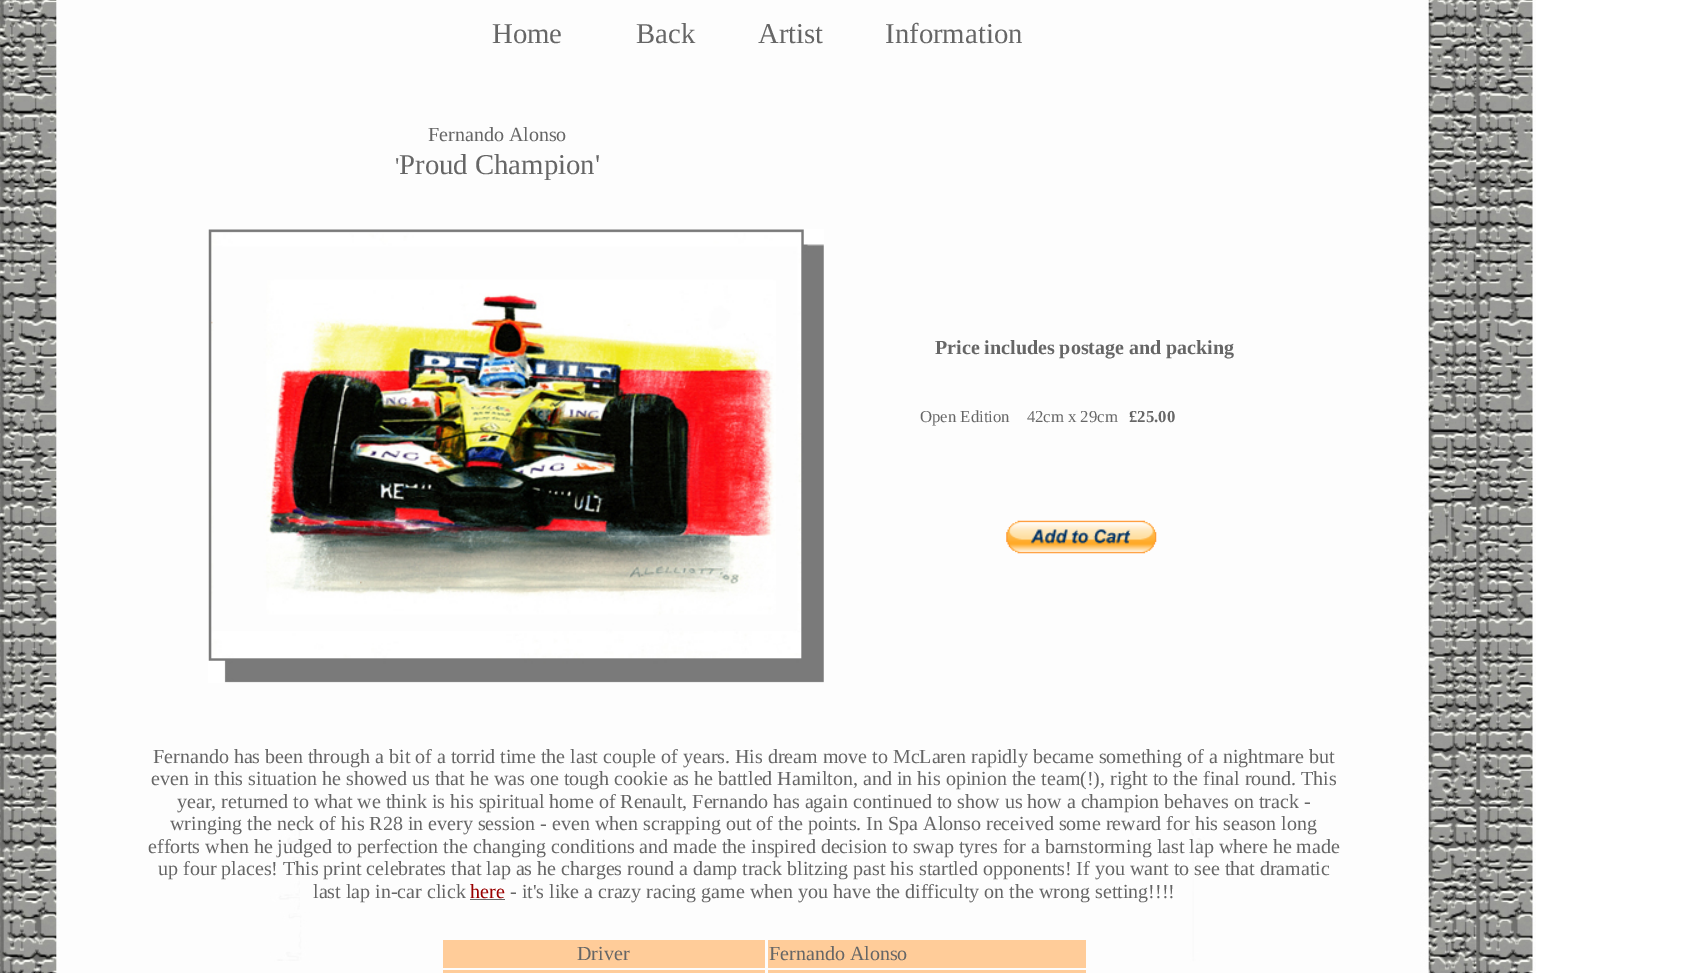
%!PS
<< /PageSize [1699 973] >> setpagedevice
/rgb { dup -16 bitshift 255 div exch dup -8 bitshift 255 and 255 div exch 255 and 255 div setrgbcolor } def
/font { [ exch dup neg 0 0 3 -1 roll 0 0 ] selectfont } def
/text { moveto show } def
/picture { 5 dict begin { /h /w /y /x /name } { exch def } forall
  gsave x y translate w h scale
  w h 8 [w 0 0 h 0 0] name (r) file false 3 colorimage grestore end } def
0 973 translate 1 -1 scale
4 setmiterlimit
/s1 { /LiberationSerif-Regular 28.75 font 16#666666 rgb } def
/s2 { /LiberationSerif-Regular 20 font 16#666666 rgb } def
/s3 { /LiberationSerif-Regular 24 font 16#666666 rgb } def
/s4 { /LiberationSerif-Bold 20 font 16#666666 rgb } def
/s5 { /LiberationSerif-Regular 16.75 font 16#666666 rgb } def
/s6 { /LiberationSerif-Bold 16.75 font 16#666666 rgb } def
/s7 { /LiberationSerif-Regular 20 font 16#990000 rgb } def
16#FFFFFF rgb
0 0 1699 973 rectfill
(pic1.raw) 0 0 1536 973 picture
s1
(Home) 492 43 text
(Back) 636 43 text
(Artist) 758 43 text
(Information) 885 43 text
s2
(Fernando Alonso) 428 141 text
s3
(') 395 174 text
s1
(Proud Champion') 399 174 text
(pic2.raw) 208 229 616 454 picture
s4
(Price includes postage and packing) 935 354 text
s5
(Open Edition    42cm x 29cm) 920 422 text
s6
(£25.00) 1129 422 text
(pic3.raw) 1006 520 151 34 picture
s2
(Fernando has been through a bit of a torrid time the last couple of years. His dream move to McLaren rapidly became something of a nightmare but) 153 763 text
(even in this situation he showed us that he was one tough cookie as he battled Hamilton, and in his opinion the team\(!\), right to the final round. This) 151 785 text
(year, returned to what we think is his spiritual home of Renault, Fernando has again continued to show us how a champion behaves on track -) 177 808 text
(wringing the neck of his R28 in every session - even when scrapping out of the points. In Spa Alonso received some reward for his season long) 170 830 text
(efforts when he judged to perfection the changing conditions and made the inspired decision to swap tyres for a barnstorming last lap where he made) 148 853 text
(up four places! This print celebrates that lap as he charges round a damp track blitzing past his startled opponents! If you want to see that dramatic) 158 875 text
(last lap in-car click) 313 898 text
s7
(here) 470 898 text
16#666666 rgb
470 899 35 1 rectfill
(- it's like a crazy racing game when you have the difficulty on the wrong setting!!!!) 510 898 text
16#FFCC99 rgb
443 940 322 28 rectfill
s2
(Driver) 577 960 text
16#FFCC99 rgb
768 940 318 28 rectfill
s2
(Fernando Alonso) 769 960 text
16#FFCC99 rgb
443 970 322 3 rectfill
768 970 318 3 rectfill
showpage
